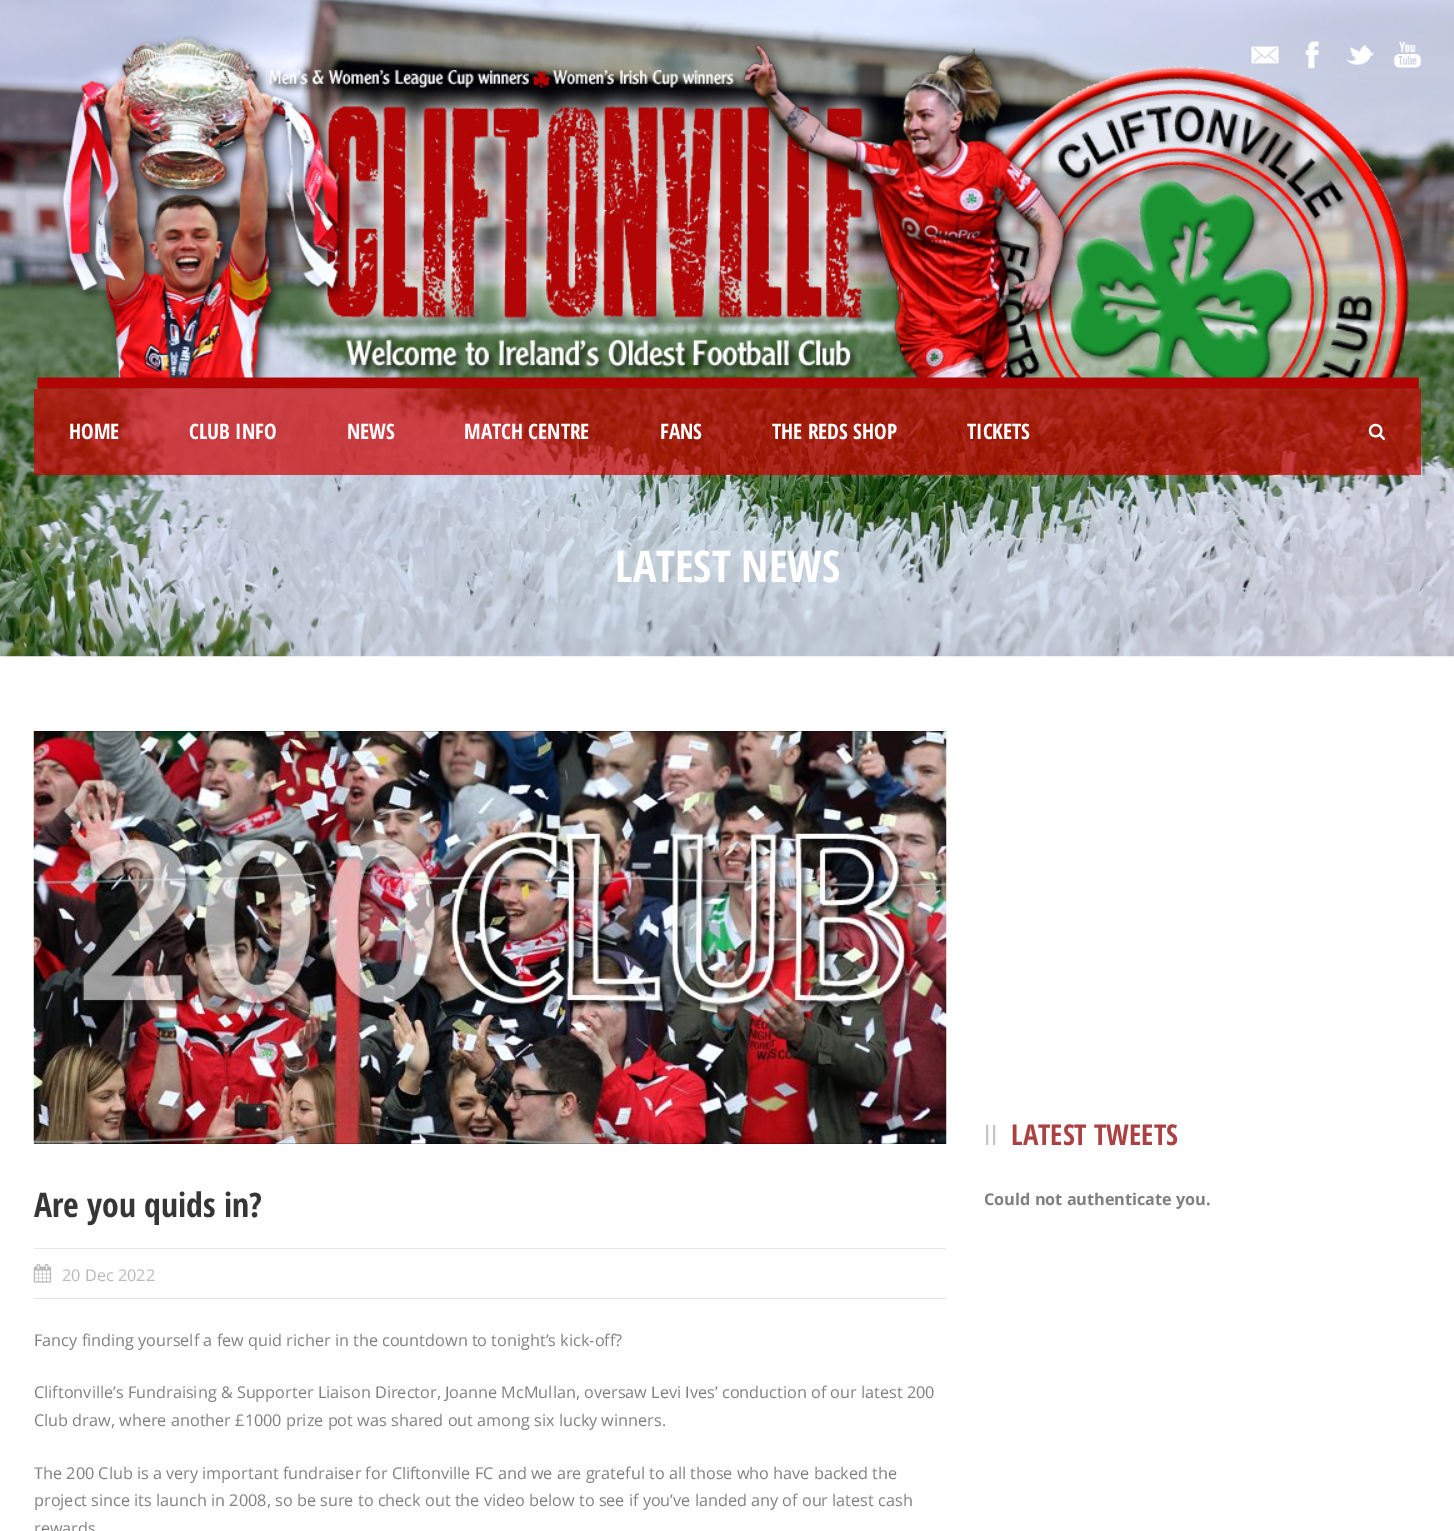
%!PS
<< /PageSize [1454 1531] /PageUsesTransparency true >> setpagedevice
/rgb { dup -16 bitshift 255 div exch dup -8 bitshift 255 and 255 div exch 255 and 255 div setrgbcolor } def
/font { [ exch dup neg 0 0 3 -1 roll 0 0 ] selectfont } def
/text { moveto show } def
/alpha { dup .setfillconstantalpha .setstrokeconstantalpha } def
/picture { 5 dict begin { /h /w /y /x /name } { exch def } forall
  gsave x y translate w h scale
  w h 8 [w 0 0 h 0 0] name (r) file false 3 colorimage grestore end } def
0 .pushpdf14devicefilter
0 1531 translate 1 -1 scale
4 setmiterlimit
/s1 { /OpenSansCondensed-Bold 21.25 font 16#FFFFFF rgb } def
/s2 { /OpenSansCondensed-Bold 43.75 font 16#FFFFFF rgb } def
/s3 { /OpenSansCondensed-Bold 28.75 font 16#AA4243 rgb } def
/s4 { /OpenSans-Bold 16.25 font 16#808080 rgb } def
/s5 { /OpenSansCondensed-Bold 33.75 font 16#363636 rgb } def
/s6 { /OpenSans-Regular 16.25 font 16#BABABA rgb } def
/s7 { /OpenSans-Regular 16.25 font 16#808080 rgb } def
16#FFFFFF rgb
0 0 1454 1531 rectfill
(pic1.raw) 0 0 1454 657 picture
(pic6.raw) 37 35 1382 354 picture
(pic2.raw) 1251 46 28 18 picture
(pic3.raw) 1305 41 14 28 picture
(pic4.raw) 1346 45 28 20 picture
(pic5.raw) 1393 42 29 26 picture
0.7 alpha
16#CC0000 rgb
34 389 1387 86 rectfill
1 alpha
s1
(HOME) 69 439 text
(CLUB INFO) 189 439 text
(NEWS) 347 439 text
(MATCH CENTRE) 464 439 text
(FANS) 660 439 text
(THE REDS SHOP) 772 439 text
(TICKETS) 967 439 text
(pic7.raw) 1368 423 17 17 picture
s2
(LATEST NEWS) 615 582 text
/LiberationSans-Regular 28 font
16#C5C5C5 rgb
984 1145 moveto 1 0 (ll) ashow
s3
(LATEST TWEETS) 1011 1145 text
s4
(Could not authenticate you.) 984 1205 text
(pic8.raw) 33 731 914 413 picture
s5
(Are you quids in?) 34 1217 text
16#E5E5E5 rgb
34 1248 912 1 rectfill
34 1298 912 1 rectfill
(pic9.raw) 33 1263 19 20 picture
s6
(20 Dec 2022) 62 1281 text
s7
(Fancy finding yourself a few quid richer in the countdown to tonight’s kick-off?) 34 1346 text
(Cliftonville’s Fundraising & Supporter Liaison Director, Joanne McMullan, oversaw Levi Ives’ conduction of our latest 200) 34 1398 text
(Club draw, where another £1000 prize pot was shared out among six lucky winners.) 34 1426 text
(The 200 Club is a very important fundraiser for Cliftonville FC and we are grateful to all those who have backed the) 34 1479 text
(project since its launch in 2008, so be sure to check out the video below to see if you’ve landed any of our latest cash) 34 1506 text
(rewards) 34 1534 text
.poppdf14devicefilter showpage
